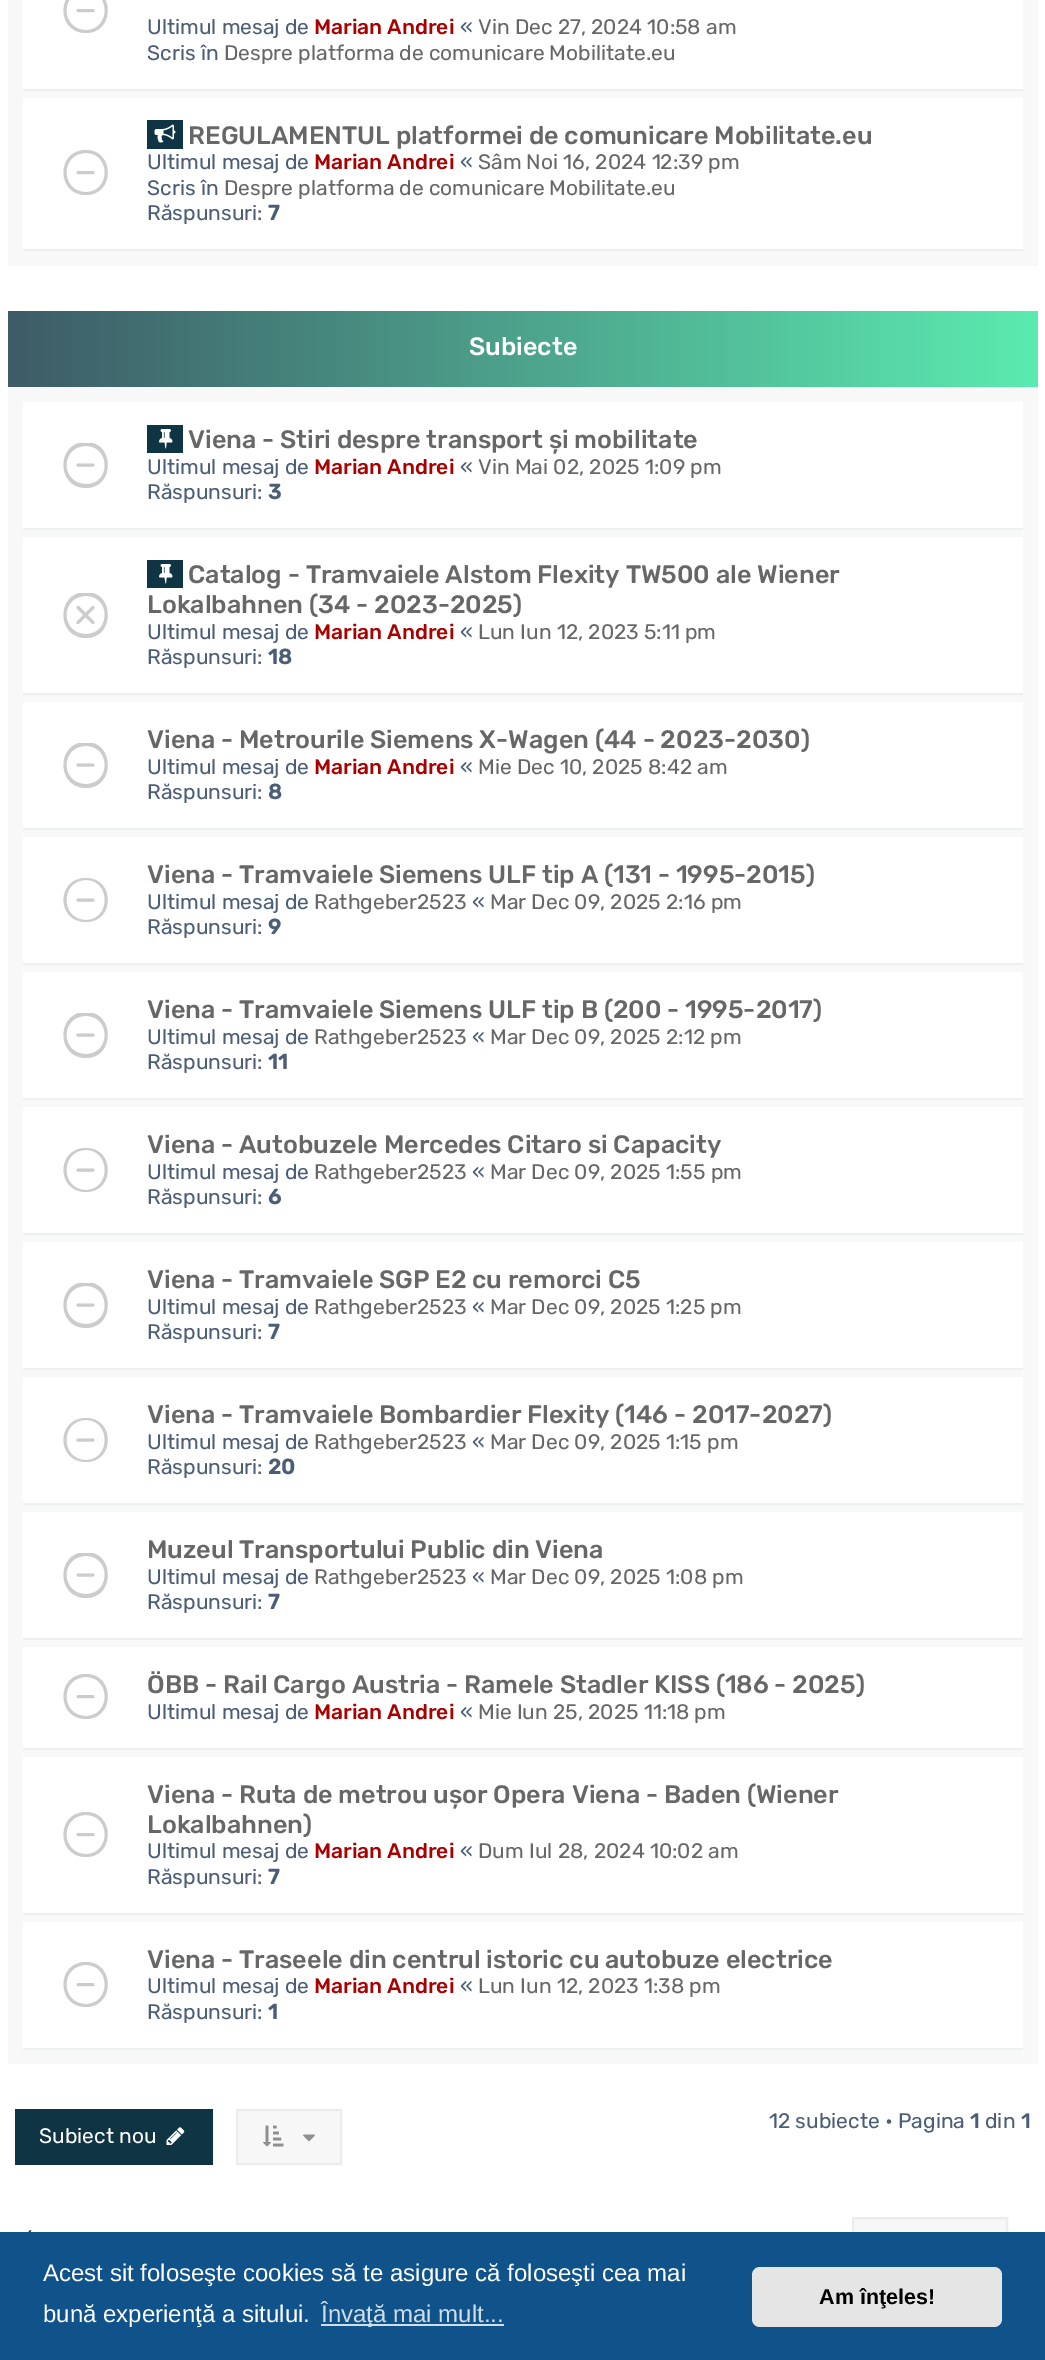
%!PS
<< /PageSize [1045 2360] >> setpagedevice
/rgb { dup -16 bitshift 255 div exch dup -8 bitshift 255 and 255 div exch 255 and 255 div setrgbcolor } def
/font { [ exch dup neg 0 0 3 -1 roll 0 0 ] selectfont } def
/text { moveto show } def
/roundrect { 5 dict begin { /r /h /w /y /x } { exch def } forall
  x r add y moveto x w add y 2 copy h add r arct x w add y h add x 1 index r arct
  x y h add x y r arct x y 2 copy exch w add exch r arct closepath end } def
/picture { 5 dict begin { /h /w /y /x /name } { exch def } forall
  gsave x y translate w h scale
  w h 8 [w 0 0 h 0 0] name (r) file false 3 colorimage grestore end } def
0 2360 translate 1 -1 scale
4 setmiterlimit
/s1 { /Rubik-Regular 21 font 16#4C5D77 rgb } def
/s2 { /Rubik-Medium 21 font 16#AA0000 rgb } def
/s3 { /Rubik-Regular 21 font 16#676767 rgb } def
/s4 { /Rubik-Medium 25.2 font 16#676767 rgb } def
/s5 { /Rubik-Bold 21 font 16#4C5D77 rgb } def
/s6 { /Rubik-Medium 25.2 font 16#FFFFFF rgb } def
/s7 { /Rubik-Medium 21 font 16#4C5D77 rgb } def
/s8 { /Rubik-Regular 21 font 16#FFFFFF rgb } def
/s9 { /LiberationSans-Regular 24 font 16#FFFFFF rgb } def
/s10 { /LiberationSans-Regular 24 font 16#CFDDE8 rgb } def
/s11 { /LiberationSans-Bold 21.5 font 16#000000 rgb } def
16#FFFFFF rgb
0 0 1045 2360 rectfill
16#F8F8F8 rgb
8 0 1030 266 rectfill
16#FFFFFF rgb
23 0 1000 89 rectfill
16#ECF0F1 rgb
23 89 1000 2 rectfill
16#CCCCCC rgb
86 -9 moveto 111 -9 111 30 86 30 curveto 60 30 60 -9 86 -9 curveto 86 -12 moveto 56 -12 56 33 86 33 curveto 115 33 115 -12 86 -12 curveto closepath fill
3 setlinewidth
1 setlinecap
78 10.5 moveto 93 10.5 lineto stroke
s1
(Ultimul mesaj de) 147 34 text
s2
(Marian Andrei) 314 34 text
s1
(«) 460 34 text
s3
(Vin Dec 27, 2024 10:58 am) 478 34 text
s1
(Scris în) 147 60 text
s3
(Despre platforma de comunicare Mobilitate.eu) 224 60 text
16#FFFFFF rgb
23 98 1000 151 rectfill
16#ECF0F1 rgb
23 249 1000 2 rectfill
16#CCCCCC rgb
86 153 moveto 111 153 111 192 86 192 curveto 60 192 60 153 86 153 curveto 86 150 moveto 56 150 56 195 86 195 curveto 115 195 115 150 86 150 curveto closepath fill
78 172.5 moveto 93 172.5 lineto stroke
16#0F3443 rgb
147 120 36 29 rectfill
(pic1.raw) 154 124 22 19 picture
s4
(REGULAMENTUL platformei de comunicare Mobilitate.eu) 188 144 text
s1
(Ultimul mesaj de) 147 169 text
s2
(Marian Andrei) 314 169 text
s1
(«) 460 169 text
s3
(Sâm Noi 16, 2024 12:39 pm) 478 169 text
s1
(Scris în) 147 195 text
s3
(Despre platforma de comunicare Mobilitate.eu) 224 195 text
s1
(Răspunsuri:) 147 220 text
s5
(7) 268 220 text
16#F8F8F8 rgb
8 387 1030 1677 rectfill
gsave 8 311 moveto 1038 311 lineto 1038 387 lineto 8 387 lineto closepath clip newpath
<< /ShadingType 2 /ColorSpace /DeviceRGB /Coords [7.5 349 1038 349] /Extend [true true] /Function << /FunctionType 2 /Domain [0 1] /C0 [0.243 0.357 0.404] /C1 [0.357 0.922 0.69] /N 1 >> >> shfill grestore
s6
(Subiecte) 469 355 text
23 402 1000 126 rectfill
16#ECF0F1 rgb
23 528 1000 2 rectfill
gsave
63 443 45 45 rectclip
16#CCCCCC rgb
86 446 moveto 111 446 111 485 86 484 curveto 60 484 60 446 86 446 curveto 86 442 moveto 56 442 56 488 86 488 curveto 115 488 115 442 86 442 curveto closepath fill
grestore
16#CCCCCC rgb
78 465 moveto 93 465 lineto stroke
16#0F3443 rgb
147 425 36 28 rectfill
(pic2.raw) 159 429 14 20 picture
s4
(Viena - Stiri despre transport și mobilitate) 188 448 text
s1
(Ultimul mesaj de) 147 474 text
s2
(Marian Andrei) 314 474 text
s1
(«) 460 474 text
s3
(Vin Mai 02, 2025 1:09 pm) 478 474 text
s1
(Răspunsuri:) 147 499 text
s5
(3) 268 499 text
16#FFFFFF rgb
23 537 1000 156 rectfill
16#ECF0F1 rgb
23 693 1000 2 rectfill
gsave
63 593 45 45 rectclip
16#CCCCCC rgb
86 596 moveto 111 596 111 634 86 634 curveto 60 634 60 596 86 596 curveto 86 592 moveto 56 592 56 638 86 638 curveto 115 638 115 592 86 592 curveto closepath fill
grestore
16#CCCCCC rgb
78 607.5 moveto 93 622.5 lineto 93 607.5 moveto 78 622.5 lineto stroke
16#0F3443 rgb
147 560 36 28 rectfill
(pic2.raw) 159 564 14 20 picture
s4
(Catalog - Tramvaiele Alstom Flexity TW500 ale Wiener) 188 583 text
(Lokalbahnen \(34 - 2023-2025\)) 147 613 text
s1
(Ultimul mesaj de) 147 639 text
s2
(Marian Andrei) 314 639 text
s1
(«) 460 639 text
s3
(Lun Iun 12, 2023 5:11 pm) 478 639 text
s1
(Răspunsuri:) 147 664 text
s5
(18) 268 664 text
16#FFFFFF rgb
23 702 1000 126 rectfill
16#ECF0F1 rgb
23 828 1000 2 rectfill
gsave
63 743 45 45 rectclip
16#CCCCCC rgb
86 746 moveto 111 746 111 784 86 784 curveto 60 784 60 746 86 746 curveto 86 742 moveto 56 742 56 788 86 788 curveto 115 788 115 742 86 742 curveto closepath fill
grestore
16#CCCCCC rgb
78 765 moveto 93 765 lineto stroke
s4
(Viena - Metrourile Siemens X-Wagen \(44 - 2023-2030\)) 147 748 text
s1
(Ultimul mesaj de) 147 774 text
s2
(Marian Andrei) 314 774 text
s1
(«) 460 774 text
s3
(Mie Dec 10, 2025 8:42 am) 478 774 text
s1
(Răspunsuri:) 147 799 text
s5
(8) 268 799 text
16#FFFFFF rgb
23 837 1000 126 rectfill
16#ECF0F1 rgb
23 963 1000 2 rectfill
16#CCCCCC rgb
86 880 moveto 111 880 111 920 86 920 curveto 60 920 60 880 86 880 curveto 86 878 moveto 56 878 56 922 86 922 curveto 115 922 115 878 86 878 curveto closepath fill
78 900 moveto 93 900 lineto stroke
s4
(Viena - Tramvaiele Siemens ULF tip A \(131 - 1995-2015\)) 147 883 text
s1
(Ultimul mesaj de) 147 909 text
s3
(Rathgeber2523) 314 909 text
s1
(«) 472 909 text
s3
(Mar Dec 09, 2025 2:16 pm) 490 909 text
s1
(Răspunsuri:) 147 934 text
s5
(9) 268 934 text
16#FFFFFF rgb
23 972 1000 126 rectfill
16#ECF0F1 rgb
23 1098 1000 2 rectfill
gsave
63 1013 45 45 rectclip
16#CCCCCC rgb
86 1016 moveto 111 1016 111 1054 86 1054 curveto 60 1054 60 1016 86 1016 curveto 86 1012 moveto 56 1012 56 1058 86 1058 curveto 115 1058 115 1012 86 1012 curveto closepath fill
grestore
16#CCCCCC rgb
78 1035 moveto 93 1035 lineto stroke
s4
(Viena - Tramvaiele Siemens ULF tip B \(200 - 1995-2017\)) 147 1018 text
s1
(Ultimul mesaj de) 147 1044 text
s3
(Rathgeber2523) 314 1044 text
s1
(«) 472 1044 text
s3
(Mar Dec 09, 2025 2:12 pm) 490 1044 text
s1
(Răspunsuri:) 147 1069 text
s5
(11) 268 1069 text
16#FFFFFF rgb
23 1107 1000 126 rectfill
16#ECF0F1 rgb
23 1233 1000 2 rectfill
16#CCCCCC rgb
86 1150 moveto 111 1150 111 1190 86 1190 curveto 60 1190 60 1150 86 1150 curveto 86 1148 moveto 56 1148 56 1192 86 1192 curveto 115 1192 115 1148 86 1148 curveto closepath fill
78 1170 moveto 93 1170 lineto stroke
s4
(Viena - Autobuzele Mercedes Citaro si Capacity) 147 1153 text
s1
(Ultimul mesaj de) 147 1179 text
s3
(Rathgeber2523) 314 1179 text
s1
(«) 472 1179 text
s3
(Mar Dec 09, 2025 1:55 pm) 490 1179 text
s1
(Răspunsuri:) 147 1204 text
s5
(6) 268 1204 text
16#FFFFFF rgb
23 1242 1000 126 rectfill
16#ECF0F1 rgb
23 1368 1000 2 rectfill
gsave
63 1283 45 45 rectclip
16#CCCCCC rgb
86 1286 moveto 111 1286 111 1324 86 1324 curveto 60 1324 60 1286 86 1286 curveto 86 1282 moveto 56 1282 56 1328 86 1328 curveto 115 1328 115 1282 86 1282 curveto closepath fill
grestore
16#CCCCCC rgb
78 1305 moveto 93 1305 lineto stroke
s4
(Viena - Tramvaiele SGP E2 cu remorci C5) 147 1288 text
s1
(Ultimul mesaj de) 147 1314 text
s3
(Rathgeber2523) 314 1314 text
s1
(«) 472 1314 text
s3
(Mar Dec 09, 2025 1:25 pm) 490 1314 text
s1
(Răspunsuri:) 147 1339 text
s5
(7) 268 1339 text
16#FFFFFF rgb
23 1377 1000 126 rectfill
16#ECF0F1 rgb
23 1503 1000 2 rectfill
16#CCCCCC rgb
86 1420 moveto 111 1420 111 1460 86 1460 curveto 60 1460 60 1420 86 1420 curveto 86 1418 moveto 56 1418 56 1462 86 1462 curveto 115 1462 115 1418 86 1418 curveto closepath fill
78 1440 moveto 93 1440 lineto stroke
s4
(Viena - Tramvaiele Bombardier Flexity \(146 - 2017-2027\)) 147 1423 text
s1
(Ultimul mesaj de) 147 1449 text
s3
(Rathgeber2523) 314 1449 text
s1
(«) 472 1449 text
s3
(Mar Dec 09, 2025 1:15 pm) 490 1449 text
s1
(Răspunsuri:) 147 1474 text
s5
(20) 268 1474 text
16#FFFFFF rgb
23 1512 1000 126 rectfill
16#ECF0F1 rgb
23 1638 1000 2 rectfill
gsave
63 1553 45 45 rectclip
16#CCCCCC rgb
86 1556 moveto 111 1556 111 1594 86 1594 curveto 60 1594 60 1556 86 1556 curveto 86 1552 moveto 56 1552 56 1598 86 1598 curveto 115 1598 115 1552 86 1552 curveto closepath fill
grestore
16#CCCCCC rgb
78 1575 moveto 93 1575 lineto stroke
s4
(Muzeul Transportului Public din Viena) 147 1558 text
s1
(Ultimul mesaj de) 147 1584 text
s3
(Rathgeber2523) 314 1584 text
s1
(«) 472 1584 text
s3
(Mar Dec 09, 2025 1:08 pm) 490 1584 text
s1
(Răspunsuri:) 147 1609 text
s5
(7) 268 1609 text
16#FFFFFF rgb
23 1647 1000 101 rectfill
16#ECF0F1 rgb
23 1748 1000 2 rectfill
16#CCCCCC rgb
86 1677 moveto 111 1677 111 1716 86 1716 curveto 60 1716 60 1677 86 1677 curveto 86 1674 moveto 56 1674 56 1719 86 1719 curveto 115 1719 115 1674 86 1674 curveto closepath fill
78 1696.5 moveto 93 1696.5 lineto stroke
s4
(ÖBB - Rail Cargo Austria - Ramele Stadler KISS \(186 - 2025\)) 147 1693 text
s1
(Ultimul mesaj de) 147 1719 text
s2
(Marian Andrei) 314 1719 text
s1
(«) 460 1719 text
s3
(Mie Iun 25, 2025 11:18 pm) 478 1719 text
16#FFFFFF rgb
23 1757 1000 156 rectfill
16#ECF0F1 rgb
23 1913 1000 2 rectfill
16#CCCCCC rgb
86 1815 moveto 111 1815 111 1854 86 1854 curveto 60 1854 60 1815 86 1815 curveto 86 1812 moveto 56 1812 56 1857 86 1857 curveto 115 1857 115 1812 86 1812 curveto closepath fill
78 1834.5 moveto 93 1834.5 lineto stroke
s4
(Viena - Ruta de metrou ușor Opera Viena - Baden \(Wiener) 147 1803 text
(Lokalbahnen\)) 147 1833 text
s1
(Ultimul mesaj de) 147 1858 text
s2
(Marian Andrei) 314 1858 text
s1
(«) 460 1858 text
s3
(Dum Iul 28, 2024 10:02 am) 478 1858 text
s1
(Răspunsuri:) 147 1884 text
s5
(7) 268 1884 text
16#FFFFFF rgb
23 1922 1000 126 rectfill
16#ECF0F1 rgb
23 2048 1000 2 rectfill
16#CCCCCC rgb
86 1965 moveto 111 1965 111 2004 86 2004 curveto 60 2004 60 1965 86 1965 curveto 86 1962 moveto 56 1962 56 2007 86 2007 curveto 115 2007 115 1962 86 1962 curveto closepath fill
78 1984.5 moveto 93 1984.5 lineto stroke
s4
(Viena - Traseele din centrul istoric cu autobuze electrice) 147 1968 text
s1
(Ultimul mesaj de) 147 1993 text
s2
(Marian Andrei) 314 1993 text
s1
(«) 460 1993 text
s3
(Lun Iun 12, 2023 1:38 pm) 478 1993 text
s1
(Răspunsuri:) 147 2019 text
s5
(1) 268 2019 text
16#F7F7F7 rgb
237 2110 moveto 341 2110 lineto 341 2164 lineto 237 2164 lineto closepath gsave fill grestore
16#EDECEC rgb
2 setlinewidth
0 setlinecap
stroke
(pic3.raw) 263 2125 21 22 picture
(pic4.raw) 303 2134 12 8 picture
s1
(12 subiecte • Pagina) 769 2128 text
s7
(1) 970 2128 text
s1
(din) 985 2128 text
s7
(1) 1021 2128 text
16#0F3443 rgb
15 2109 198 56 rectfill
s8
(Subiect nou) 39 2143 text
(pic5.raw) 166 2127 19 18 picture
(pic6.raw) 28 2230 4 2 picture
16#F7F7F7 rgb
854 2219 152 13 rectfill
16#EDECEC rgb
853 2218 154 55 rectstroke
16#0F538A rgb
0 2232 1045 128 rectfill
s9
(Acest sit foloseşte cookies să te asigure că foloseşti cea mai) 43 2281 text
(bună experienţă a sitului.) 43 2322 text
16#CFDDE8 rgb
321 2324 183 2 rectfill
(Învaţă mai mult...) 321 2322 text
16#E5E5E5 rgb
752 2267 250 60 8 roundrect fill
s11
(Am înţeles!) 819 2304 text
showpage
